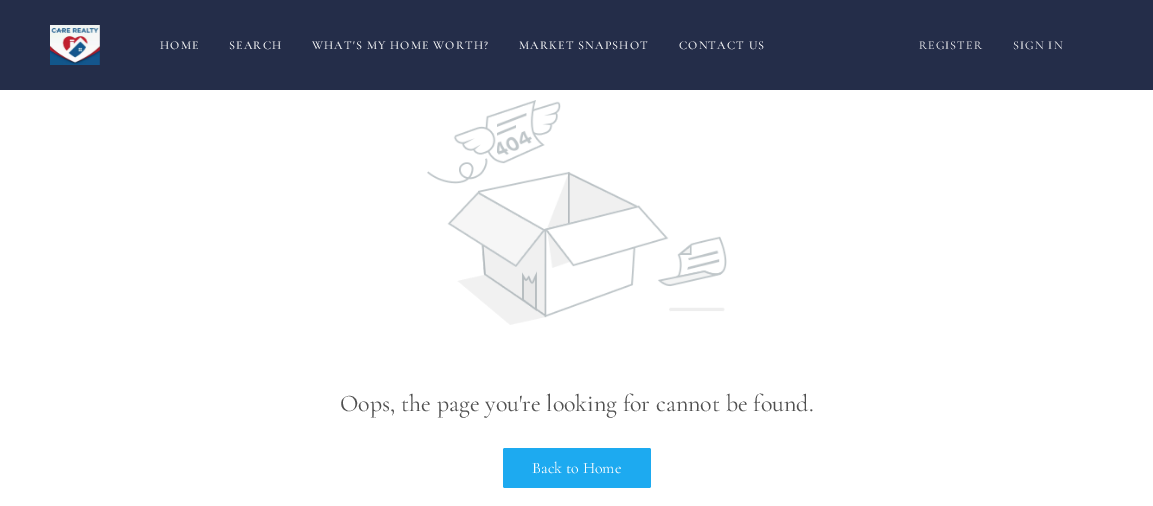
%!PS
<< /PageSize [1153 506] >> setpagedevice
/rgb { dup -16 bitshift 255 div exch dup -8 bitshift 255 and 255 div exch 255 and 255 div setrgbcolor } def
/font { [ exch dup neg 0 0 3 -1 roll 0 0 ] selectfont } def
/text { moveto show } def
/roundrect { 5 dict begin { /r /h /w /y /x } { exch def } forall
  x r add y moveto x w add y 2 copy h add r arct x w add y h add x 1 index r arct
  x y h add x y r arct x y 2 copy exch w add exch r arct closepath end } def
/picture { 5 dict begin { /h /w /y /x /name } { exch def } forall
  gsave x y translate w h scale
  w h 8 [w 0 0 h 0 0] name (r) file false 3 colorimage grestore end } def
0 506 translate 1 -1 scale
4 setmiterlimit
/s1 { /CormorantGaramond-Regular 24 font 16#505050 rgb } def
/s2 { /CormorantGaramond-Regular 16 font 16#FFFFFF rgb } def
16#FFFFFF rgb
0 0 1153 506 rectfill
16#242D49 rgb
0 0 1153 90 rectfill
(pic1.raw) 50 25 50 40 picture
/CormorantGaramond-Medium 12 font
16#FFFFFF rgb
160 49 moveto 1.1 0 (HOME) ashow
229 49 moveto 1.1 0 (SEARCH) ashow
312 49 moveto 1.1 0 (WHAT'S MY HOME WORTH?) ashow
519 49 moveto 1.1 0 (MARKET SNAPSHOT) ashow
679 49 moveto 1.1 0 (CONTACT US) ashow
/CormorantGaramond-Regular 12 font
919 49 moveto 1.1 0 (REGISTER) ashow
1013 49 moveto 1.1 0 (SIGN IN) ashow
(pic2.raw) 427 100 300 225 picture
s1
(Oops, the page you're looking for cannot be found.) 340 411 text
16#1DAAF0 rgb
503 448 148 40 2 roundrect fill
s2
(Back to Home) 532 473 text
showpage
